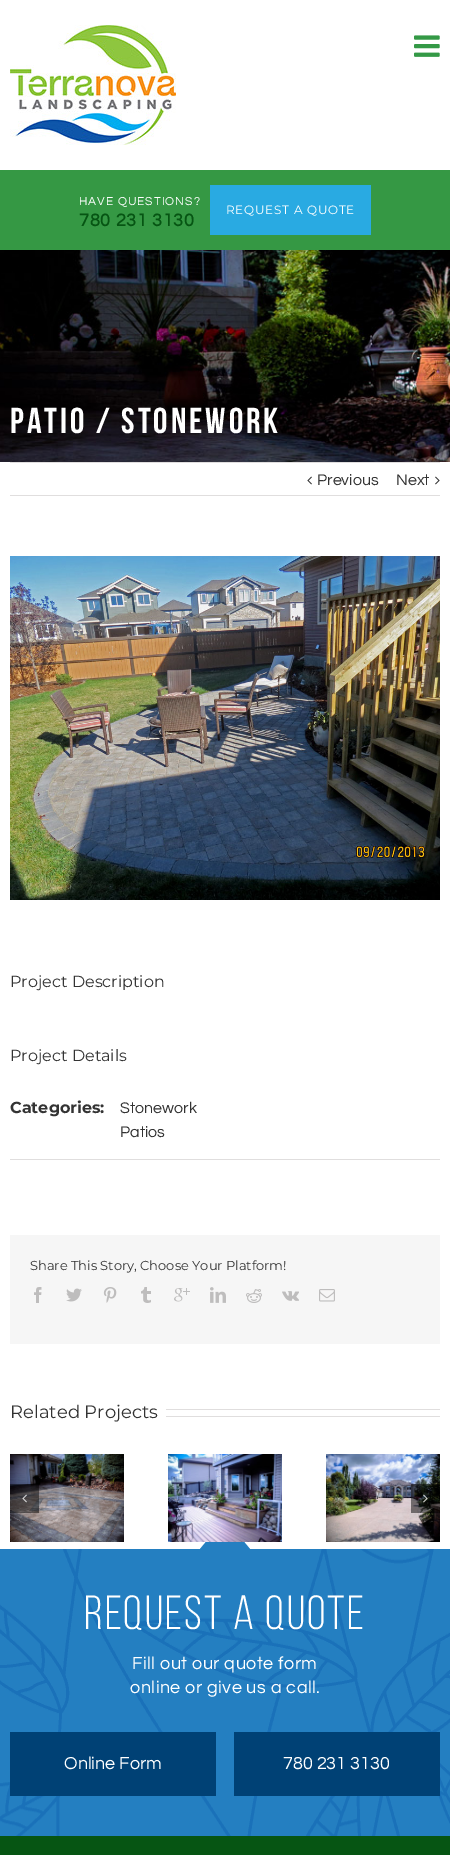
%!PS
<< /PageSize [450 1855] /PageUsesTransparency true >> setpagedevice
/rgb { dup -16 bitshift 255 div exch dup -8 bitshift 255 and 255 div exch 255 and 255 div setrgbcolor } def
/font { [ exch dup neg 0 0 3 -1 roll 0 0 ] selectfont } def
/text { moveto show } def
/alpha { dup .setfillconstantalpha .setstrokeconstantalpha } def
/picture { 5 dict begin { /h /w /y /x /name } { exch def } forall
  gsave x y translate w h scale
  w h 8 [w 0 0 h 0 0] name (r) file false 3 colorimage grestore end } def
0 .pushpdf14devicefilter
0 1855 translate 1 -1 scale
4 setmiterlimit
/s1 { /Questrial-Regular 16 font 16#333333 rgb } def
/s2 { /Montserrat-Regular 16 font 16#333333 rgb } def
/s3 { /Montserrat-Bold 16 font 16#333333 rgb } def
/s4 { /Montserrat-Regular 13 font 16#333333 rgb } def
/s5 { /Montserrat-Regular 18 font 16#333333 rgb } def
/s6 { /Questrial-Regular 18 font 16#FFFFFF rgb } def
16#FFFFFF rgb
0 0 450 1855 rectfill
(pic1.raw) 414 35 26 22 picture
(pic2.raw) 10 25 166 120 picture
16#359844 rgb
0 170 450 80 rectfill
/Questrial-Regular 12 font
16#FFFFFF rgb
79 205 moveto 1 0 (HAVE QUESTIONS?) ashow
/Questrial-Bold 18 font
16#065513 rgb
79 226 moveto 0.75 0 (780 231 3130) ashow
16#29AAE2 rgb
210 185 161 50 rectfill
/Montserrat-Regular 12 font
16#FFFFFF rgb
226 214 moveto 0.75 0 (REQUEST A QUOTE) ashow
(pic3.raw) 0 250 450 212 picture
/BebasNeue-Bold 36 font
10 433 moveto 3 0 (PATIO / STONEWORK) ashow
16#E0DEDE rgb
10 462 430 1 rectfill
10 495 430 1 rectfill
(pic4.raw) 307 476 5 9 picture
s1
(Previous) 317 485 text
(Next) 396 485 text
(pic5.raw) 435 476 5 9 picture
(pic6.raw) 10 556 430 344 picture
s2
(Project Description) 10 987 text
(Project Details) 10 1061 text
16#E0DEDE rgb
10 1159 430 1 rectfill
s3
(Categories:) 10 1113 text
s1
(Stonework) 120 1113 text
(Patios) 120 1137 text
16#F6F6F6 rgb
10 1235 430 109 rectfill
s4
(Share This Story, Choose Your Platform!) 30 1270 text
(pic7.raw) 34 1287 8 16 picture
(pic8.raw) 66 1288 16 14 picture
(pic9.raw) 103 1287 14 16 picture
(pic10.raw) 141 1287 10 16 picture
(pic11.raw) 174 1288 16 14 picture
(pic12.raw) 210 1287 16 16 picture
(pic13.raw) 246 1289 16 14 picture
(pic14.raw) 282 1291 17 10 picture
(pic15.raw) 319 1289 16 13 picture
s5
(Related Projects) 10 1418 text
16#E0DEDE rgb
166 1409 274 1 rectfill
166 1416 274 1 rectfill
(pic16.raw) 10 1454 114 88 picture
16#247FC1 rgb
250 1549 moveto 200 1549 lineto 225 1519 lineto closepath fill
(pic17.raw) 168 1454 114 88 picture
(pic18.raw) 326 1454 114 88 picture
0.48 alpha
16#000000 rgb
10 1484 29 29 rectfill
1 alpha
(pic19.raw) 22 1494 5 9 picture
0.48 alpha
411 1484 29 29 rectfill
1 alpha
(pic20.raw) 423 1494 5 9 picture
(pic21.raw) 0 1549 450 287 picture
/BebasNeue-Regular 48 font
16#FFFFFF rgb
84 1629 moveto 2 0 (REQUEST A QUOTE) ashow
/Questrial-Regular 18 font
132 1669 moveto 0.5 0 (Fill out our quote form) ashow
130 1693 moveto 0.5 0 (online or give us a call.) ashow
16#004175 rgb
10 1732 206 64 rectfill
s6
(Online Form) 64 1769 text
16#004175 rgb
234 1732 206 64 rectfill
s6
(780 231 3130) 283 1769 text
16#065513 rgb
0 1836 450 19 rectfill
.poppdf14devicefilter showpage
